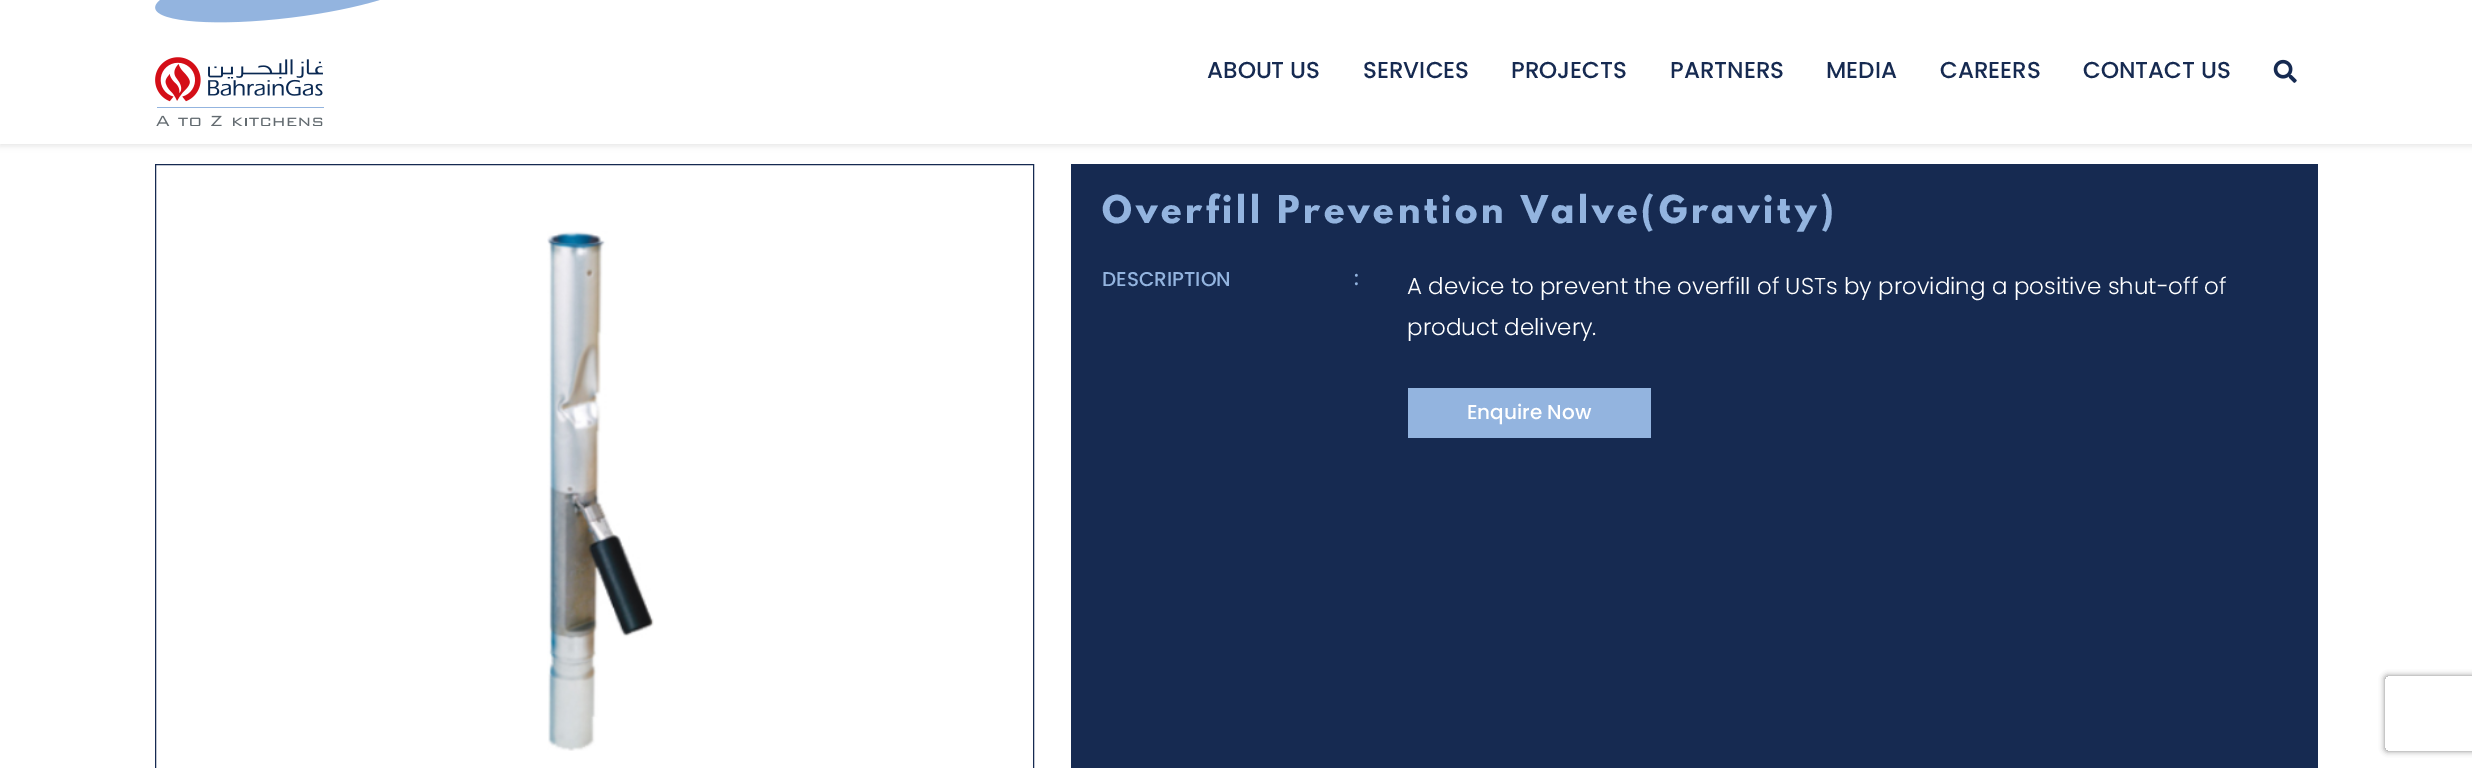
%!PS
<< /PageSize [2472 768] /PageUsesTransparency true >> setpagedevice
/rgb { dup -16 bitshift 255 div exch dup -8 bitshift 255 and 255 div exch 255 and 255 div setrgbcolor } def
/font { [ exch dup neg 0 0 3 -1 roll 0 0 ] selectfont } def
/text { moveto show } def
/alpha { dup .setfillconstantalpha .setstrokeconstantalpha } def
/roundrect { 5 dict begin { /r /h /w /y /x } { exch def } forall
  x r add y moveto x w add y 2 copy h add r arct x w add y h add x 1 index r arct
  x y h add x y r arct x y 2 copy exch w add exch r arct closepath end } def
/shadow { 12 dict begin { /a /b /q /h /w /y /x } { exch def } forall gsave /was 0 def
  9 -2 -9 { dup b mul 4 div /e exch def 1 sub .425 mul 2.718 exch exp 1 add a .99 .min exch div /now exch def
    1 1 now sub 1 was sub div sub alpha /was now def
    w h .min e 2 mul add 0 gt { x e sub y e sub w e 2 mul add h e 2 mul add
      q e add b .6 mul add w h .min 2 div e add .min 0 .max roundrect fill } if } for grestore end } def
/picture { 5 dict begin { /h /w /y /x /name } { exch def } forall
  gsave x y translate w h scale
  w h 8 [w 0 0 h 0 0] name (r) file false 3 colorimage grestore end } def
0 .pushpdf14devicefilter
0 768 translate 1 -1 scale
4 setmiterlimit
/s1 { /Poppins-Medium 23 font 16#162A51 rgb } def
/s2 { /Poppins-Medium 20 font 16#93B4DF rgb } def
/s3 { /Poppins-Light 23 font 16#FFFFFF rgb } def
/s4 { /Poppins-Medium 20 font 16#FFFFFF rgb } def
16#FFFFFF rgb
0 0 2472 768 rectfill
16#000000 rgb
0 3 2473 143 0 3 0.1 shadow
16#FFFFFF rgb
0 0 2472 144 rectfill
(pic1.raw) 155 0 225 126 picture
s1
(ABOUT US) 1207 78 text
(SERVICES) 1363 78 text
(PROJECTS) 1511 78 text
(PARTNERS) 1670 78 text
(MEDIA) 1826 78 text
(CAREERS) 1940 78 text
(CONTACT US) 2083 78 text
(pic2.raw) 2273 59 24 24 picture
155.5 164.5 878 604 rectstroke
(pic3.raw) 547 231 107 520 picture
1071 164 1247 604 rectfill
/LeagueSpartan-Bold 34 font
16#93B4DF rgb
1102 223 moveto 3.75 0 (Overfill Prevention Valve\(Gravity\)) ashow
s2
(DESCRIPTION) 1102 286 text
(:) 1354 285 text
s3
(A device to prevent the overfill of USTs by providing a positive shut-off of) 1407 294 text
(product delivery.) 1407 335 text
16#93B4DF rgb
1408 388 243 50 rectfill
s4
(Enquire Now) 1467 419 text
gsave
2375 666 moveto 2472 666 lineto 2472 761 lineto 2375 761 lineto closepath 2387.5 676 moveto 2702.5 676 lineto 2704 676 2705 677 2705 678.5 curveto 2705 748.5 lineto 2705 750 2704 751 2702.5 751 curveto 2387.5 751 lineto 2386 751 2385 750 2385 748.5 curveto 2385 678.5 lineto 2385 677 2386 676 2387.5 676 curveto closepath eoclip newpath
16#808080 rgb
2385 676 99 75 2.5 3 1 shadow
grestore
.poppdf14devicefilter showpage
